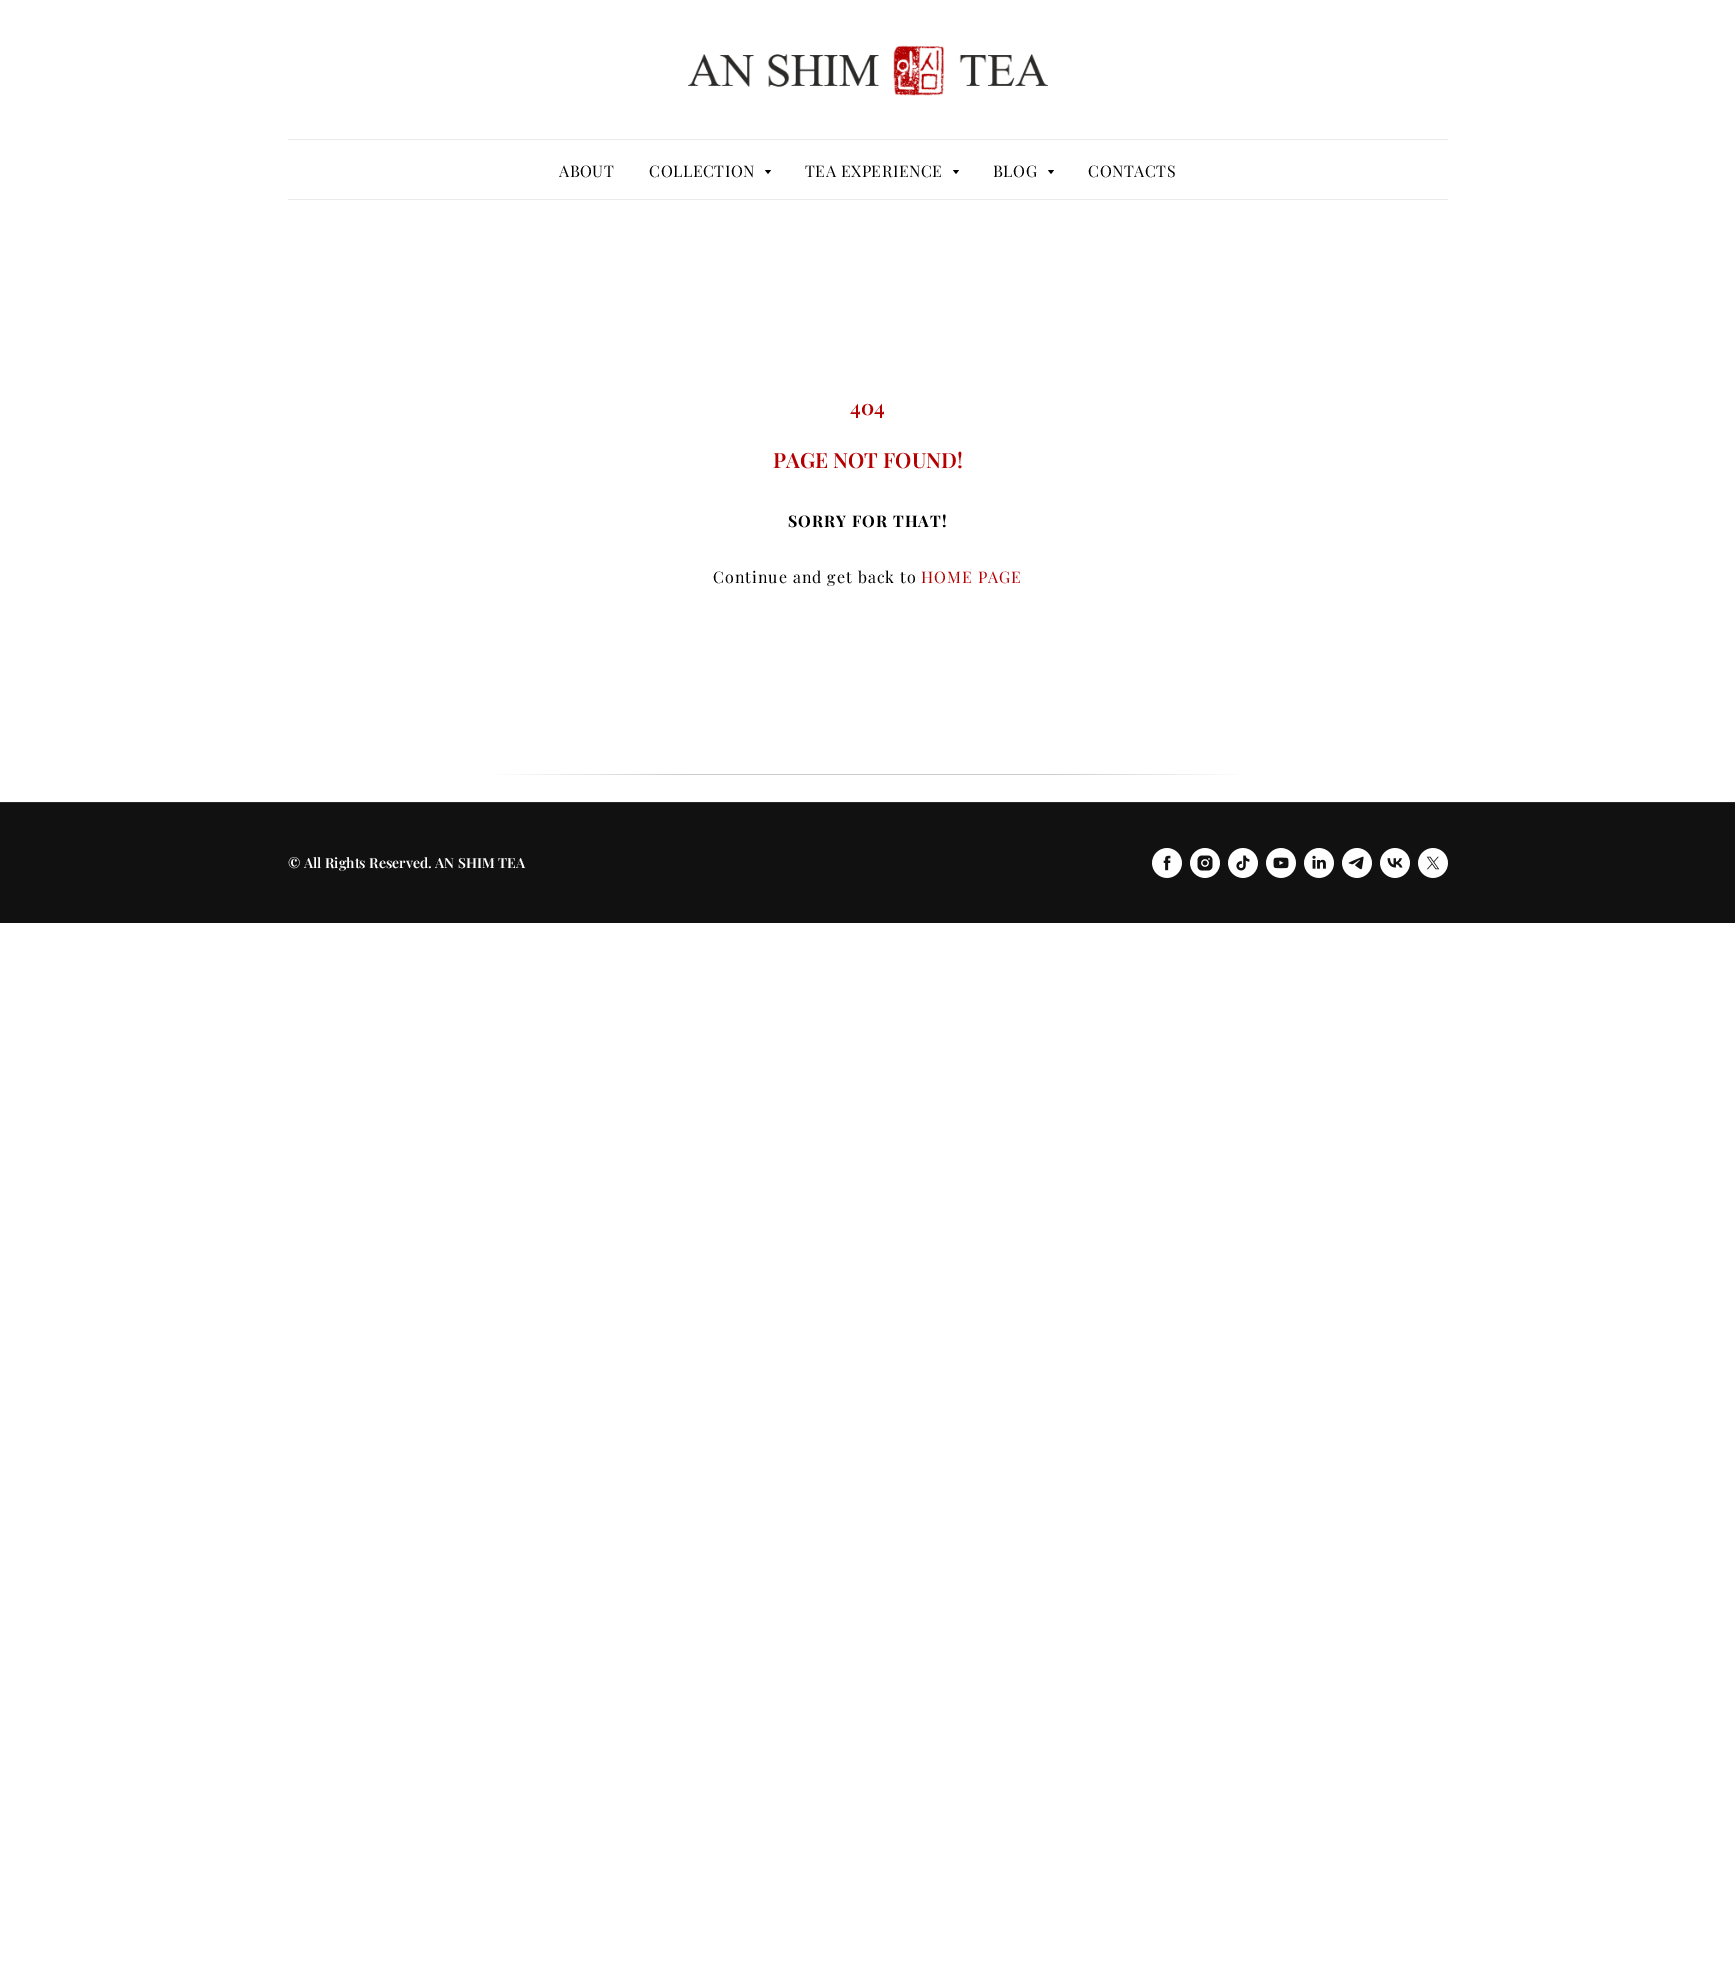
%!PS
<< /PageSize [1735 1966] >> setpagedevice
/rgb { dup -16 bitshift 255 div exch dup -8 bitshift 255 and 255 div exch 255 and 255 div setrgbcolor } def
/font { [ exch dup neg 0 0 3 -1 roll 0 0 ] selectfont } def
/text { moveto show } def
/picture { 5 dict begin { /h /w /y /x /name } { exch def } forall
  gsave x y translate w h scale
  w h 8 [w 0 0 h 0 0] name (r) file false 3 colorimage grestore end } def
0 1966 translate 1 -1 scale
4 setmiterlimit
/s1 { /PlayfairDisplay-SemiBold 21 font 16#B40000 rgb } def
/s2 { /PlayfairDisplay-SemiBold 14 font 16#FFFFFF rgb } def
16#FFFFFF rgb
0 0 1735 1966 rectfill
(pic1.raw) 688 45 360 51 picture
16#EAEAEA rgb
288 139 1160 1 rectfill
/PlayfairDisplay-Regular 16 font
16#000000 rgb
559 177 moveto 0.5 0 (ABOUT) ashow
649 177 moveto 0.5 0 (COLLECTION) ashow
765 170 moveto 771 170 lineto 768 174 lineto closepath fill
805 177 moveto 0.5 0 (TEA EXPERIENCE) ashow
953 170 moveto 959 170 lineto 956 174 lineto closepath fill
993 177 moveto 0.5 0 (BLOG) ashow
1048 170 moveto 1054 170 lineto 1051 174 lineto closepath fill
1088 177 moveto 0.5 0 (CONTACTS) ashow
16#EAEAEA rgb
288 199 1160 1 rectfill
s1
(404) 850 415 text
(PAGE NOT FOUND!) 773 468 text
/PlayfairDisplay-Bold 16 font
16#000000 rgb
788 527 moveto 1 0 (SORRY FOR THAT!) ashow
/PlayfairDisplay-Regular 16 font
713 583 moveto 1 0 (Continue and get back to) ashow
16#B40000 rgb
921 583 moveto 1 0 (HOME PAGE) ashow
gsave 498 774 moveto 688 774 lineto 688 775 lineto 498 775 lineto closepath clip newpath
<< /ShadingType 2 /ColorSpace /DeviceRGB /Coords [688 775 488 775] /Extend [true true] /Function << /FunctionType 2 /Domain [0 1] /C0 [0.8 0.8 0.8] /C1 [1 1 1] /N 1 >> >> shfill grestore
16#CCCCCC rgb
688 774 360 1 rectfill
gsave 1048 774 moveto 1238 774 lineto 1238 775 lineto 1048 775 lineto closepath clip newpath
<< /ShadingType 2 /ColorSpace /DeviceRGB /Coords [1048 775 1248 775] /Extend [true true] /Function << /FunctionType 2 /Domain [0 1] /C0 [0.8 0.8 0.8] /C1 [1 1 1] /N 1 >> >> shfill grestore
16#111111 rgb
0 803 1735 120 rectfill
16#292929 rgb
0 802 1735 1 rectfill
s2
(© All Rights Reserved. AN SHIM TEA) 288 868 text
(pic2.raw) 1152 848 30 30 picture
(pic3.raw) 1190 848 30 30 picture
(pic4.raw) 1228 848 30 30 picture
(pic5.raw) 1266 848 30 30 picture
(pic6.raw) 1304 848 30 30 picture
(pic7.raw) 1342 848 30 30 picture
(pic8.raw) 1380 848 30 30 picture
(pic9.raw) 1418 848 30 30 picture
showpage
